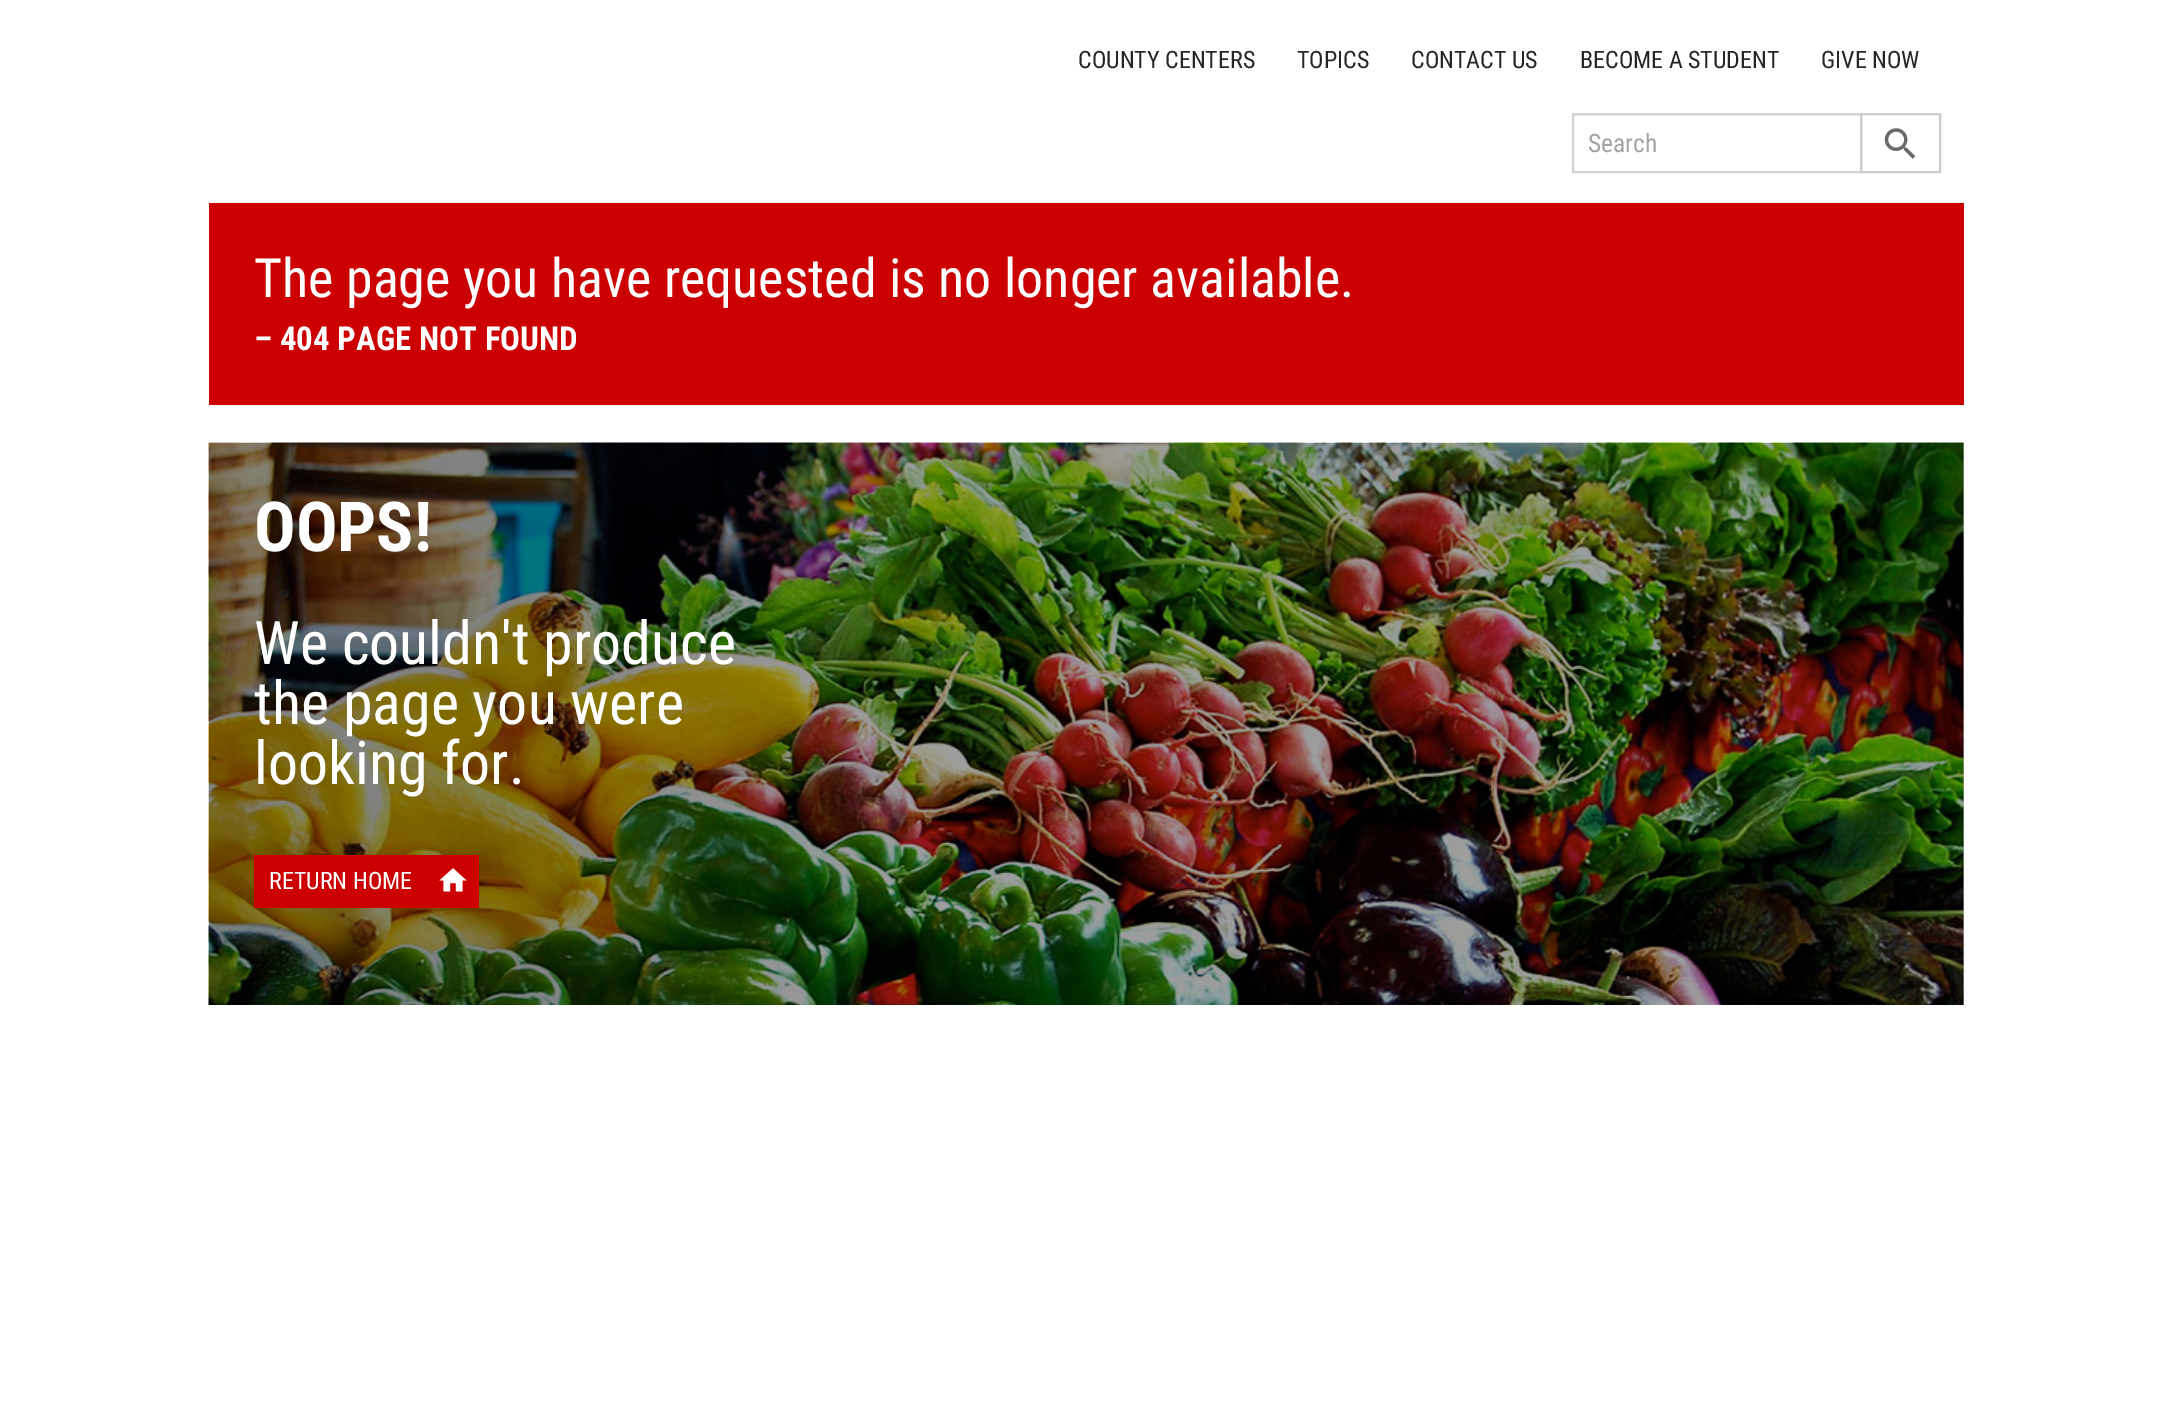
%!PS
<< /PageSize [2171 1411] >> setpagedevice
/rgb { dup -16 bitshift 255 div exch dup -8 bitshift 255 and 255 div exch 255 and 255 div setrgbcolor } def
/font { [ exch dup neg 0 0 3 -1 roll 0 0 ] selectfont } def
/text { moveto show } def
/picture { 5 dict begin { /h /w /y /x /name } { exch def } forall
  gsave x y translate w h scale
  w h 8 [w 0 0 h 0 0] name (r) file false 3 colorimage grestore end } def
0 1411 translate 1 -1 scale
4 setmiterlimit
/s1 { /RobotoCondensed-Regular 24 font 16#262626 rgb } def
/s2 { /RobotoCondensed-Regular 25.5 font 16#A3A3A3 rgb } def
/s3 { /RobotoCondensed-Regular 54 font 16#FFFFFF rgb } def
/s4 { /RobotoCondensed-Bold 33 font 16#FFFFFF rgb } def
/s5 { /RobotoCondensed-Bold 69 font 16#FFFFFF rgb } def
/s6 { /RobotoCondensed-Regular 60 font 16#FFFFFF rgb } def
/s7 { /RobotoCondensed-Regular 24 font 16#FFFFFF rgb } def
16#FFFFFF rgb
0 0 2171 1411 rectfill
16#B3B3B3 rgb
1963 443 1 562 rectfill
s1
(COUNTY CENTERS) 1078 68 text
(TOPICS) 1297 68 text
(CONTACT US) 1411 68 text
(BECOME A STUDENT) 1580 68 text
(GIVE NOW) 1821 68 text
16#EEEEEE rgb
1574 115 286 1 rectfill
16#D1D1D1 rgb
2 setlinewidth
1573 114 288 58 rectstroke
s2
(Search) 1588 152 text
16#CCCCCC rgb
1861 114 79 58 rectstroke
(pic1.raw) 1884 128 32 31 picture
16#CC0000 rgb
209 203 1755 202 rectfill
s3
(The page you have requested is no longer available.) 254 297 text
s4
(– 404 PAGE NOT FOUND) 254 350 text
(pic2.raw) 208 442 1756 563 picture
s5
(OOPS!) 254 551 text
s6
(We couldn't produce) 254 664 text
(the page you were) 254 724 text
(looking for.) 254 784 text
16#CC0000 rgb
254 855 225 53 rectfill
s7
(RETURN HOME) 269 889 text
(pic3.raw) 439 868 28 24 picture
showpage
